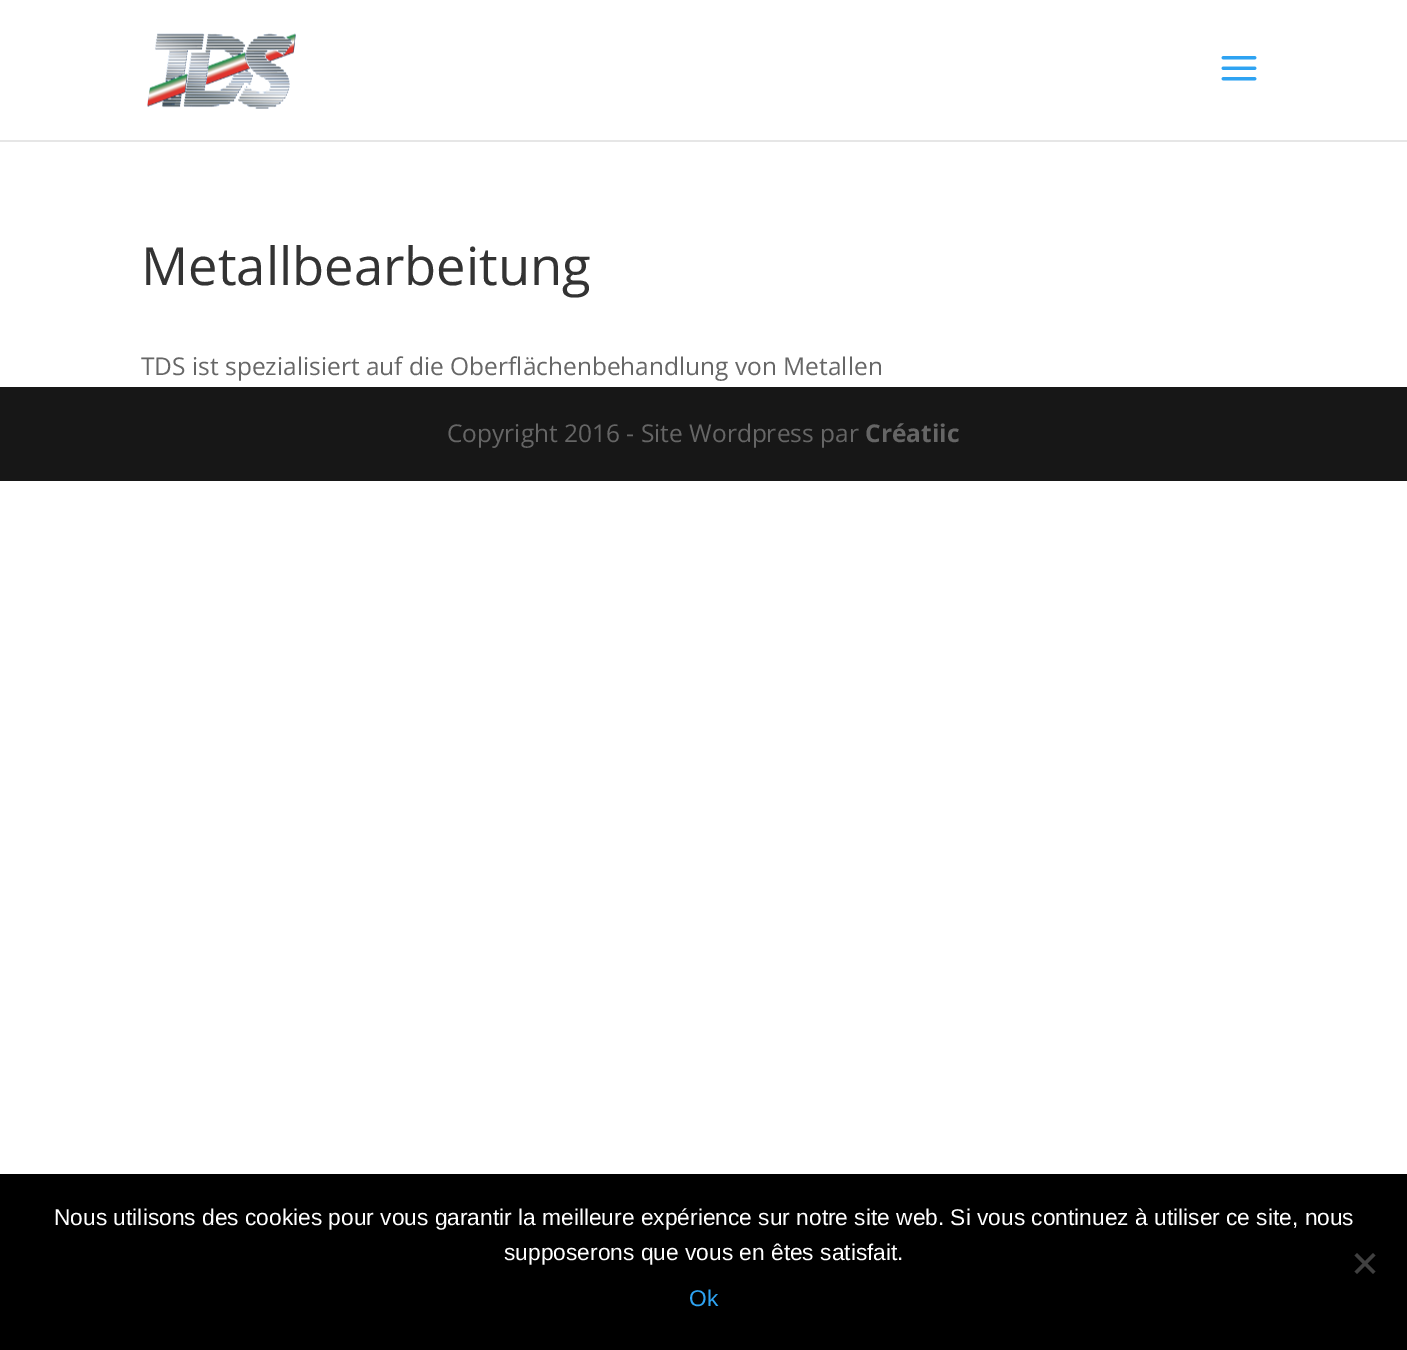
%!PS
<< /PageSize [1407 1350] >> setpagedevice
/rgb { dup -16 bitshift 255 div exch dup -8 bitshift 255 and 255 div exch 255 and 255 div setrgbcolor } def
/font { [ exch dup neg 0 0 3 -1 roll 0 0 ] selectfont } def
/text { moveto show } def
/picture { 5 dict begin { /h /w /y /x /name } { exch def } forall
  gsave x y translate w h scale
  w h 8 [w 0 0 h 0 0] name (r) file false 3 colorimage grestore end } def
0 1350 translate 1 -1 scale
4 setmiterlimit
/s1 { /OpenSans-Regular 52.5 font 16#333333 rgb } def
/s2 { /OpenSans-Regular 24.5 font 16#666666 rgb } def
/s3 { /OpenSans-Bold 24.5 font 16#666666 rgb } def
/s4 { /LiberationSans-Regular 22.75 font 16#FFFFFF rgb } def
/s5 { /LiberationSans-Regular 22.75 font 16#2EA3F2 rgb } def
16#FFFFFF rgb
0 0 1407 1350 rectfill
16#E6E6E6 rgb
0 140 1407 2 rectfill
(pic1.raw) 147 33 149 76 picture
(pic2.raw) 1221 56 36 25 picture
s1
(Metallbearbeitung) 141 285 text
s2
(TDS ist spezialisiert auf die Oberflächenbehandlung von Metallen) 141 375 text
16#171717 rgb
0 387 1407 94 rectfill
s2
(Copyright 2016 - Site Wordpress par) 447 442 text
s3
(Créatiic) 865 442 text
16#000000 rgb
0 1174 1407 176 rectfill
s4
(Nous utilisons des cookies pour vous garantir la meilleure expérience sur notre site web. Si vous continuez à utiliser ce site, nous) 54 1225 text
(supposerons que vous en êtes satisfait.) 504 1260 text
16#404040 rgb
1373 1253 moveto 1375.5 1255.5 lineto 1357 1274 lineto 1354.5 1271.5 lineto closepath fill
1354.5 1255.5 moveto 1357 1253 lineto 1375.5 1271.5 lineto 1373 1274 lineto closepath fill
s5
(Ok) 689 1306 text
showpage
